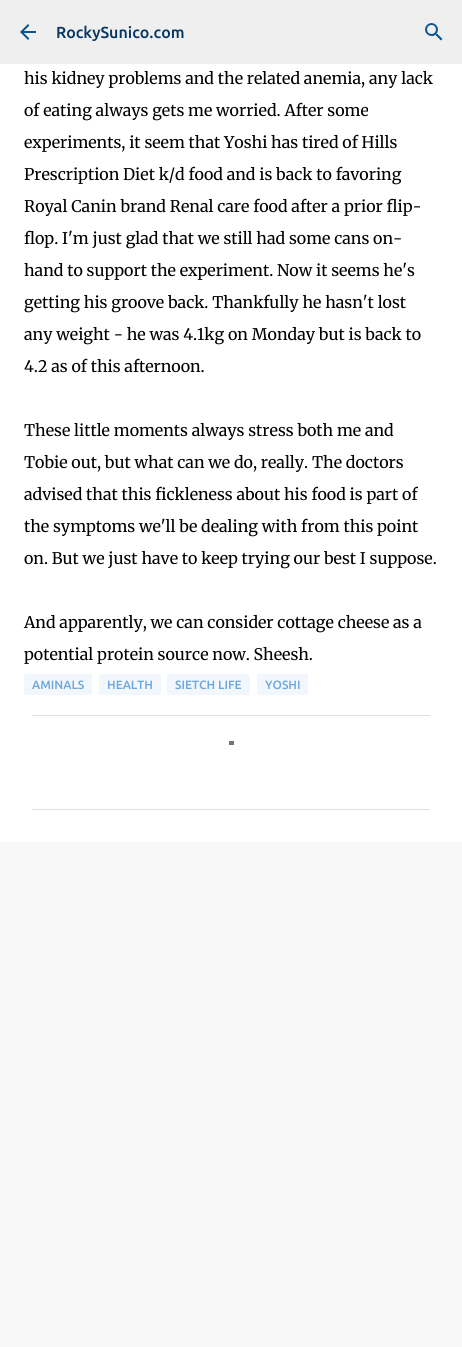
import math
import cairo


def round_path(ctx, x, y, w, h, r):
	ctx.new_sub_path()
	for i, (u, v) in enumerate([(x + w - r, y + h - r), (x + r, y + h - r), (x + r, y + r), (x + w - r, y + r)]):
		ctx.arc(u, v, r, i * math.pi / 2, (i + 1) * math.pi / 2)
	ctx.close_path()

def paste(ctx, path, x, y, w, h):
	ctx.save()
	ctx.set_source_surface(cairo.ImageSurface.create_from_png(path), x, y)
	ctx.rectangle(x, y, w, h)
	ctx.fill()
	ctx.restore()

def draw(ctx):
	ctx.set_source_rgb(0.969, 0.969, 0.969)
	ctx.paint()
	ctx.set_source_rgb(0.937, 0.937, 0.937)
	ctx.rectangle(0, 0, 462, 64)
	ctx.fill()
	paste(ctx, 'media/1.png', 20, 24, 16, 16)
	ctx.select_font_face('Ubuntu Medium')
	ctx.set_font_size(16)
	ctx.set_source_rgb(0.027, 0.216, 0.388)
	ctx.move_to(56, 38)
	ctx.show_text('RockySunico.com')
	paste(ctx, 'media/2.png', 425, 23, 18, 18)
	ctx.set_source_rgb(1, 1, 1)
	ctx.rectangle(0, 64, 462, 778)
	ctx.fill()
	ctx.select_font_face('Merriweather')
	ctx.set_source_rgb(0, 0, 0)
	for x, y, s in [
		(24, 84, 'his kidney problems and the related anemia, any lack'),
		(24, 116, 'of eating always gets me worried. After some'),
		(24, 148, 'experiments, it seem that Yoshi has tired of Hills'),
		(24, 180, 'Prescription Diet k/d food and is back to favoring'),
		(24, 212, 'Royal Canin brand Renal care food after a prior flip-'),
		(24, 244, 'flop. I\'m just glad that we still had some cans on-'),
		(24, 276, 'hand to support the experiment. Now it seems he\'s'),
		(24, 308, 'getting his groove back. Thankfully he hasn\'t lost'),
		(24, 340, 'any weight - he was 4.1kg on Monday but is back to'),
		(24, 372, '4.2 as of this afternoon.'),
		(24, 436, 'These little moments always stress both me and'),
		(24, 468, 'Tobie out, but what can we do, really. The doctors'),
		(24, 500, 'advised that this fickleness about his food is part of'),
		(24, 532, 'the symptoms we\'ll be dealing with from this point'),
		(24, 564, 'on. But we just have to keep trying our best I suppose.'),
		(24, 628, 'And apparently, we can consider cottage cheese as a'),
		(24, 660, 'potential protein source now. Sheesh.'),
	]:
		ctx.move_to(x, y)
		ctx.show_text(s)
	ctx.set_source_rgb(0.945, 0.965, 0.988)
	round_path(ctx, 24, 674, 68, 21, 2)
	ctx.fill()
	ctx.select_font_face('Ubuntu Medium')
	ctx.set_font_size(12)
	ctx.set_source_rgb(0.435, 0.659, 0.863)
	ctx.move_to(32, 689)
	ctx.show_text('AMINALS')
	ctx.set_source_rgb(0.945, 0.965, 0.988)
	round_path(ctx, 99, 674, 62, 21, 2)
	ctx.fill()
	ctx.set_source_rgb(0.435, 0.659, 0.863)
	ctx.move_to(107, 689)
	ctx.show_text('HEALTH')
	ctx.set_source_rgb(0.945, 0.965, 0.988)
	round_path(ctx, 167, 674, 83, 21, 2)
	ctx.fill()
	ctx.set_source_rgb(0.435, 0.659, 0.863)
	ctx.move_to(175, 689)
	ctx.show_text('SIETCH LIFE')
	ctx.set_source_rgb(0.945, 0.965, 0.988)
	round_path(ctx, 257, 674, 51, 21, 2)
	ctx.fill()
	ctx.set_source_rgb(0.435, 0.659, 0.863)
	ctx.move_to(265, 689)
	ctx.show_text('YOSHI')
	ctx.set_source_rgb(0.878, 0.878, 0.878)
	ctx.rectangle(32, 715, 398, 1)
	ctx.rectangle(32, 809, 398, 1)
	ctx.fill()
	ctx.set_source_rgb(0.459, 0.459, 0.459)
	ctx.rectangle(229, 741, 5, 4)
	ctx.fill()


surface = cairo.ImageSurface(cairo.FORMAT_RGB24, 462, 1347)
ctx = cairo.Context(surface)
options = cairo.FontOptions()
options.set_hint_metrics(cairo.HINT_METRICS_OFF)
options.set_hint_style(cairo.HINT_STYLE_NONE)
ctx.set_font_options(options)
ctx.set_miter_limit(4)
draw(ctx)
surface.write_to_png('image.png')
